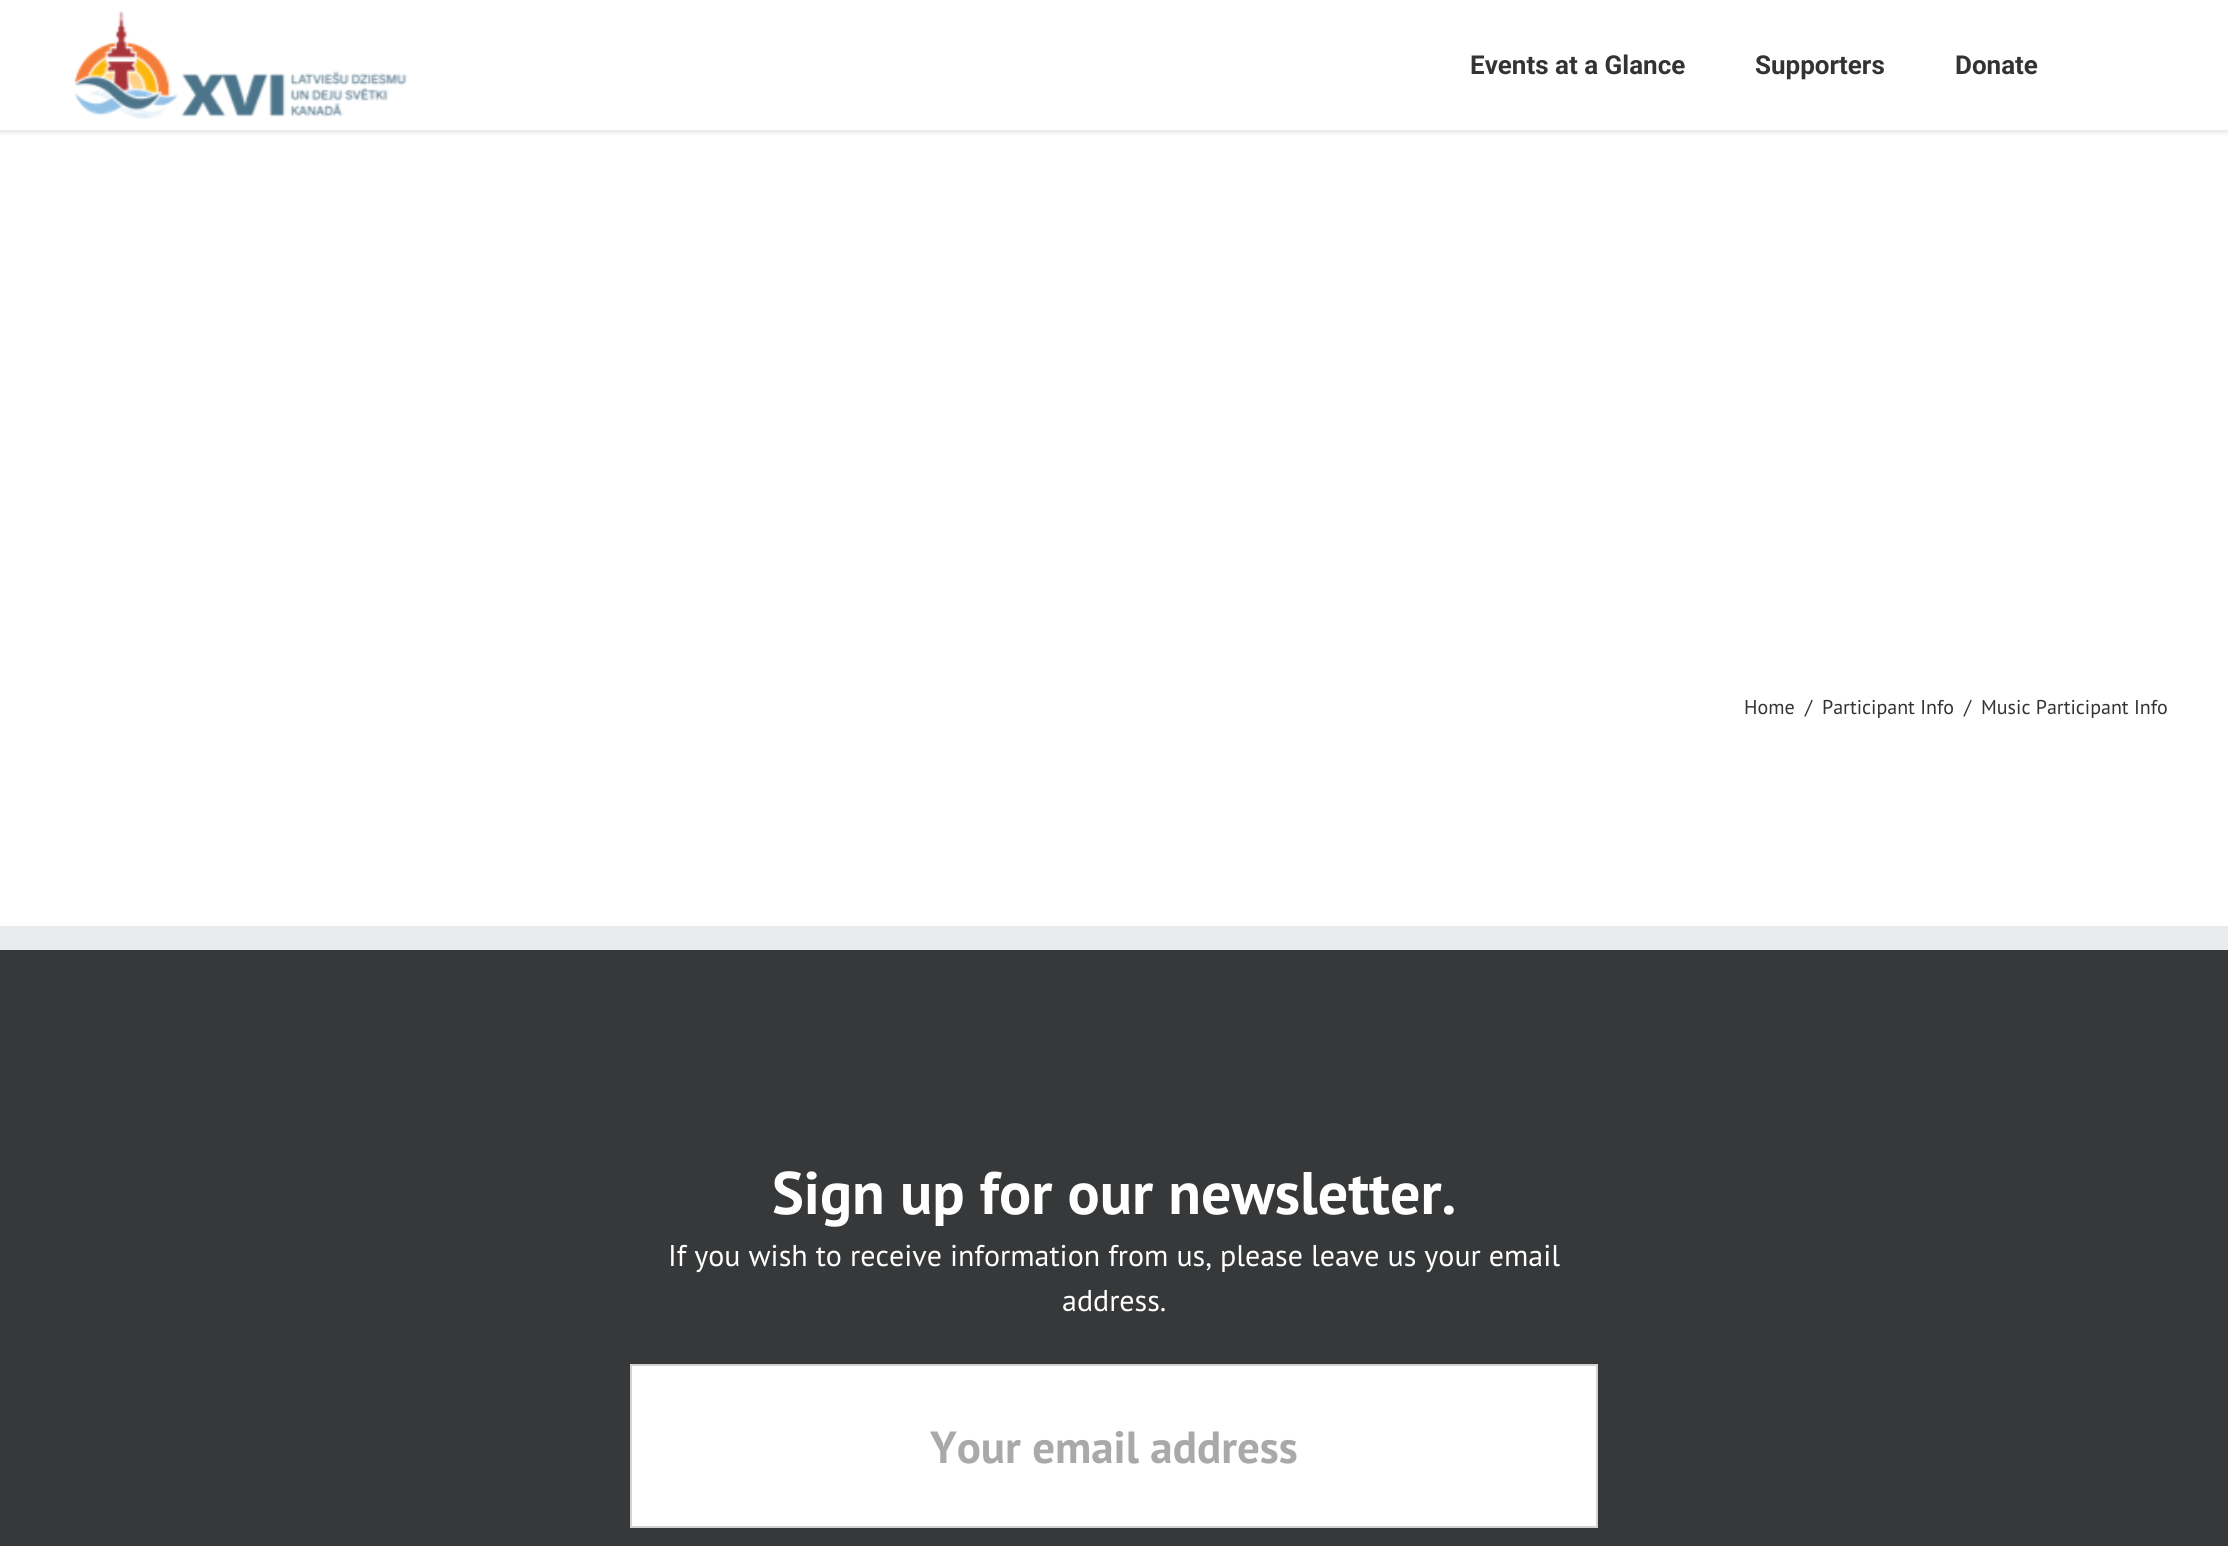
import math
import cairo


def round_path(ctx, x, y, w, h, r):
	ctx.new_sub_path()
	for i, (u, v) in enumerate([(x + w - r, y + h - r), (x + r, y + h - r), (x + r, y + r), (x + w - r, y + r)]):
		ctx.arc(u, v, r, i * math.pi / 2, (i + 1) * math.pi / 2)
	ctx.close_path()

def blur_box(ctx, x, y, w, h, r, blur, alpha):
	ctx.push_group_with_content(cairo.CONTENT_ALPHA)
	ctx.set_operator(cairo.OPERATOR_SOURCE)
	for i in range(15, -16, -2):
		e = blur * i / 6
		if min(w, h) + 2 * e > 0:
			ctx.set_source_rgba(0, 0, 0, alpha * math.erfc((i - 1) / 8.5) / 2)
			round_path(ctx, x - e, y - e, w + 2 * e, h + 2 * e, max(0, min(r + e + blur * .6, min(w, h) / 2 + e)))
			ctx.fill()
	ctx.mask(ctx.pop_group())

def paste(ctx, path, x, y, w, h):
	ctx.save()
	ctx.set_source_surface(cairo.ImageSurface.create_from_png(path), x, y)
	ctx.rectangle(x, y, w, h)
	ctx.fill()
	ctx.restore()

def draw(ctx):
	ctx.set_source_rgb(1, 1, 1)
	ctx.paint()
	ctx.save()
	ctx.rectangle(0, 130, 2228, 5)
	ctx.clip()
	ctx.set_source_rgb(0, 0, 0)
	blur_box(ctx, 0, 2, 2228, 130, 0, 3, 0.12)
	ctx.restore()
	paste(ctx, 'media/1.png', 74, 11, 333, 108)
	ctx.select_font_face('Roboto', cairo.FONT_SLANT_NORMAL, cairo.FONT_WEIGHT_BOLD)
	ctx.set_font_size(26)
	ctx.set_source_rgb(0.2, 0.2, 0.2)
	for x, y, s in [
		(1470, 74, 'Events at a Glance'),
		(1755, 74, 'Supporters'),
		(1955, 74, 'Donate'),
	]:
		ctx.move_to(x, y)
		ctx.show_text(s)
	ctx.select_font_face('PT Sans')
	ctx.set_font_size(20)
	for x, y, s in [
		(1744, 714, 'Home'),
		(1805, 714, '/'),
		(1822, 714, 'Participant Info'),
		(1964, 714, '/'),
		(1981, 714, 'Music Participant Info'),
	]:
		ctx.move_to(x, y)
		ctx.show_text(s)
	ctx.set_source_rgb(0.212, 0.22, 0.224)
	ctx.rectangle(0, 950, 2228, 596)
	ctx.fill()
	ctx.set_source_rgb(0.914, 0.918, 0.933)
	ctx.rectangle(0, 926, 2228, 24)
	ctx.fill()
	ctx.select_font_face('PT Sans', cairo.FONT_SLANT_NORMAL, cairo.FONT_WEIGHT_BOLD)
	ctx.set_font_size(60)
	ctx.set_source_rgb(1, 1, 1)
	ctx.move_to(772, 1214)
	ctx.show_text('Sign up for our newsletter.')
	ctx.select_font_face('PT Sans')
	ctx.set_font_size(30)
	ctx.move_to(668, 1266)
	ctx.show_text('If you wish to receive information from us, please leave us your email')
	ctx.move_to(1062, 1311)
	ctx.show_text('address.')
	ctx.rectangle(631, 1365, 966, 162)
	ctx.fill_preserve()
	ctx.set_source_rgb(0.824, 0.824, 0.824)
	ctx.stroke()
	ctx.select_font_face('PT Sans', cairo.FONT_SLANT_NORMAL, cairo.FONT_WEIGHT_BOLD)
	ctx.set_font_size(45)
	ctx.set_source_rgb(0.667, 0.663, 0.663)
	ctx.move_to(930, 1463)
	ctx.show_text('Your email address')


surface = cairo.ImageSurface(cairo.FORMAT_RGB24, 2228, 1546)
ctx = cairo.Context(surface)
options = cairo.FontOptions()
options.set_hint_metrics(cairo.HINT_METRICS_OFF)
options.set_hint_style(cairo.HINT_STYLE_NONE)
ctx.set_font_options(options)
ctx.set_miter_limit(4)
draw(ctx)
surface.write_to_png('image.png')
